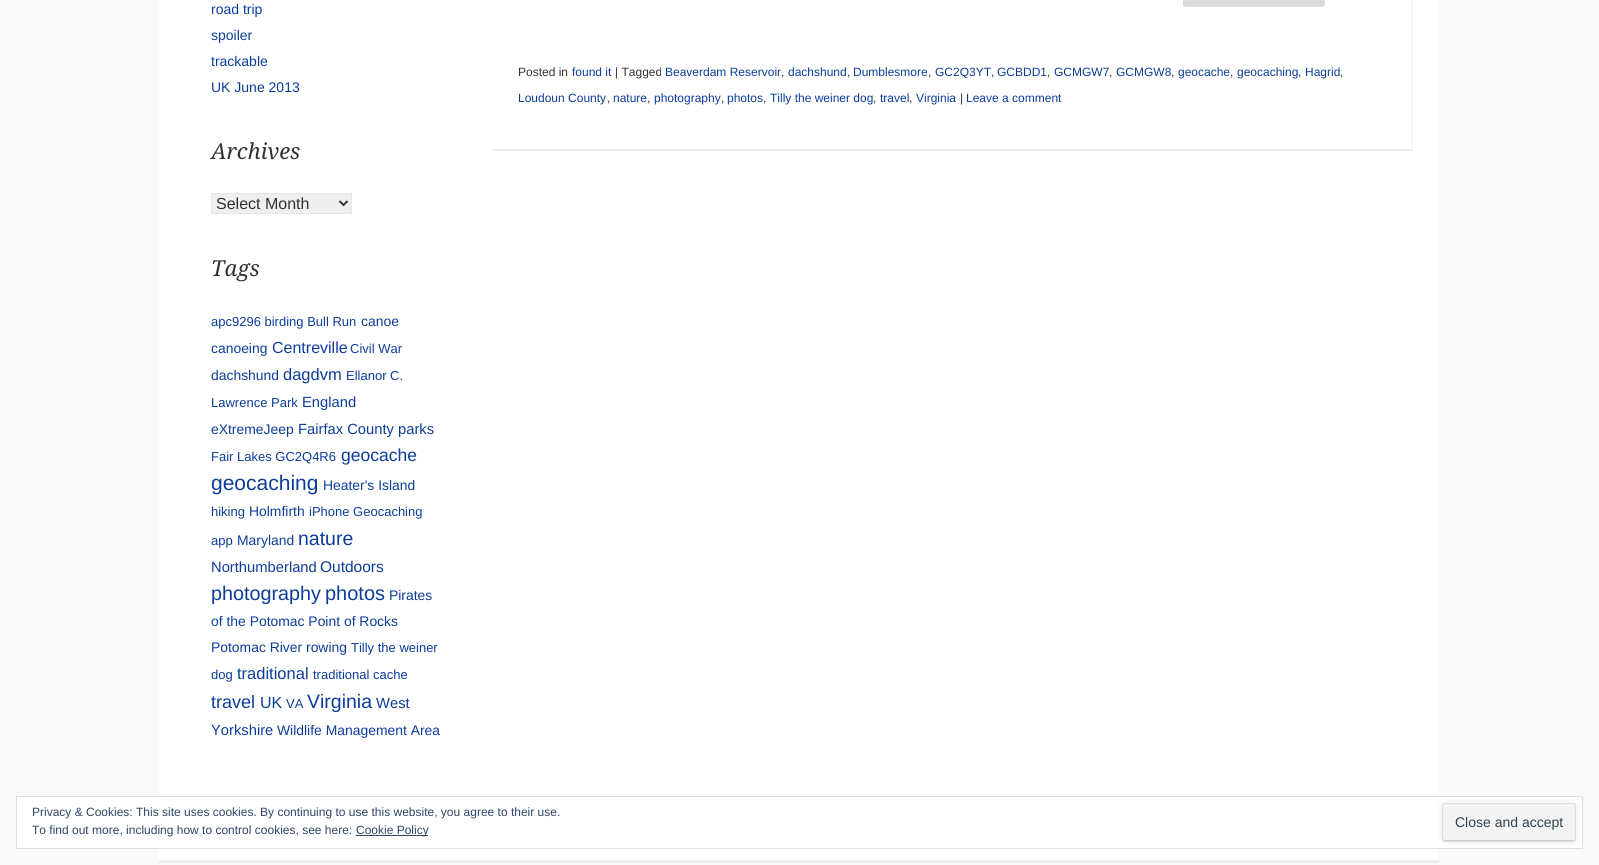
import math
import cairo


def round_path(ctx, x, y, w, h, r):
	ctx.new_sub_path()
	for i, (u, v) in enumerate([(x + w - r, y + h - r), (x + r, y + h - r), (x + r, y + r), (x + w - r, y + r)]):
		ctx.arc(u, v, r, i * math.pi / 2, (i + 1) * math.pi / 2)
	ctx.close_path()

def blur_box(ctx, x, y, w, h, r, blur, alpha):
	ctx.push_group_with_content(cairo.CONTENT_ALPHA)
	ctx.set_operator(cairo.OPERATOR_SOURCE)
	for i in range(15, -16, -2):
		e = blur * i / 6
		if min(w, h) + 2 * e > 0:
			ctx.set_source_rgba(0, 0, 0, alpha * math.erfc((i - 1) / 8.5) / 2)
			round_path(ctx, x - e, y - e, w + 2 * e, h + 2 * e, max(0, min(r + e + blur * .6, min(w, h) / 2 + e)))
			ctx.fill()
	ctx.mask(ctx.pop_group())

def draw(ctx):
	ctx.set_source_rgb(0.98, 0.98, 0.98)
	ctx.paint()
	ctx.set_source_rgb(1, 1, 1)
	ctx.rectangle(159, 0, 1280, 860)
	ctx.fill()
	ctx.set_source_rgb(0.922, 0.922, 0.922)
	ctx.rectangle(159, 860, 1280, 3)
	ctx.fill()
	ctx.select_font_face('Liberation Sans')
	ctx.set_font_size(14)
	ctx.set_source_rgb(0.051, 0.239, 0.608)
	for x, y, s in [
		(211, 14, 'road trip'),
		(211, 40, 'spoiler'),
		(211, 66, 'trackable'),
		(211, 92, 'UK June 2013'),
	]:
		ctx.move_to(x, y)
		ctx.show_text(s)
	ctx.select_font_face('Droid Serif', cairo.FONT_SLANT_ITALIC)
	ctx.set_font_size(22)
	ctx.set_source_rgb(0.196, 0.196, 0.196)
	ctx.move_to(211, 159)
	ctx.show_text('Archives')
	ctx.set_source_rgb(0.937, 0.937, 0.937)
	ctx.rectangle(211.5, 193.5, 140, 20)
	ctx.fill_preserve()
	ctx.set_source_rgb(0.902, 0.902, 0.902)
	ctx.set_line_width(1)
	ctx.stroke()
	ctx.new_path()
	ctx.move_to(339.5, 201)
	ctx.line_to(343.5, 205)
	ctx.line_to(347.5, 201)
	ctx.set_source_rgb(0.196, 0.196, 0.196)
	ctx.set_line_width(2)
	ctx.stroke()
	ctx.select_font_face('Liberation Sans')
	ctx.set_font_size(16)
	ctx.move_to(216, 209)
	ctx.show_text('Select Month')
	ctx.select_font_face('Droid Serif', cairo.FONT_SLANT_ITALIC)
	ctx.set_font_size(22)
	ctx.move_to(211, 276)
	ctx.show_text('Tags')
	ctx.select_font_face('Liberation Sans')
	ctx.set_font_size(13)
	ctx.set_source_rgb(0.051, 0.239, 0.608)
	ctx.move_to(211, 326)
	ctx.show_text('apc9296 birding Bull Run')
	ctx.set_font_size(13.9)
	ctx.move_to(361, 326)
	ctx.show_text('canoe')
	ctx.move_to(211, 353)
	ctx.show_text('canoeing')
	ctx.set_font_size(16)
	ctx.move_to(272, 353)
	ctx.show_text('Centreville')
	ctx.set_font_size(13)
	ctx.move_to(350, 353)
	ctx.show_text('Civil War')
	ctx.set_font_size(13.9)
	ctx.move_to(211, 380)
	ctx.show_text('dachshund')
	ctx.set_font_size(16.5)
	ctx.move_to(283, 380)
	ctx.show_text('dagdvm')
	ctx.set_font_size(13)
	ctx.move_to(346, 380)
	ctx.show_text('Ellanor C.')
	ctx.move_to(211, 407)
	ctx.show_text('Lawrence Park')
	ctx.set_font_size(14.75)
	ctx.move_to(302, 407)
	ctx.show_text('England')
	ctx.set_font_size(13.9)
	ctx.move_to(211, 434)
	ctx.show_text('eXtremeJeep')
	ctx.set_font_size(14.75)
	ctx.move_to(298, 434)
	ctx.show_text('Fairfax County parks')
	ctx.set_font_size(13)
	ctx.move_to(211, 461)
	ctx.show_text('Fair Lakes GC2Q4R6')
	ctx.set_font_size(17.5)
	ctx.move_to(341, 461)
	ctx.show_text('geocache')
	ctx.set_font_size(21)
	ctx.move_to(211, 490)
	ctx.show_text('geocaching')
	ctx.set_font_size(13.9)
	ctx.move_to(323, 490)
	ctx.show_text('Heater\'s Island')
	ctx.set_font_size(13)
	ctx.move_to(211, 516)
	ctx.show_text('hiking')
	ctx.set_font_size(13.9)
	ctx.move_to(249, 516)
	ctx.show_text('Holmfirth')
	ctx.set_font_size(13)
	ctx.move_to(309, 516)
	ctx.show_text('iPhone Geocaching')
	ctx.move_to(211, 545)
	ctx.show_text('app')
	ctx.set_font_size(13.9)
	ctx.move_to(237, 545)
	ctx.show_text('Maryland')
	ctx.set_font_size(19.5)
	ctx.move_to(298, 545)
	ctx.show_text('nature')
	ctx.set_font_size(14.75)
	ctx.move_to(211, 572)
	ctx.show_text('Northumberland')
	ctx.set_font_size(15.5)
	ctx.move_to(320, 572)
	ctx.show_text('Outdoors')
	ctx.set_font_size(19.75)
	ctx.move_to(211, 600)
	ctx.show_text('photography')
	ctx.set_font_size(20)
	ctx.move_to(325, 600)
	ctx.show_text('photos')
	ctx.set_font_size(13.9)
	for x, y, s in [
		(389, 600, 'Pirates'),
		(211, 626, 'of the Potomac Point of Rocks'),
		(211, 652, 'Potomac River rowing'),
	]:
		ctx.move_to(x, y)
		ctx.show_text(s)
	ctx.set_font_size(13)
	ctx.move_to(351, 652)
	ctx.show_text('Tilly the weiner')
	ctx.move_to(211, 679)
	ctx.show_text('dog')
	ctx.set_font_size(16.5)
	ctx.move_to(237, 679)
	ctx.show_text('traditional')
	ctx.set_font_size(13)
	ctx.move_to(313, 679)
	ctx.show_text('traditional cache')
	ctx.set_font_size(18)
	ctx.move_to(211, 708)
	ctx.show_text('travel')
	ctx.set_font_size(16)
	ctx.move_to(260, 708)
	ctx.show_text('UK')
	ctx.set_font_size(13)
	ctx.move_to(286, 708)
	ctx.show_text('VA')
	ctx.set_font_size(19.5)
	ctx.move_to(307, 708)
	ctx.show_text('Virginia')
	ctx.set_font_size(14.75)
	ctx.move_to(376, 708)
	ctx.show_text('West')
	ctx.move_to(211, 735)
	ctx.show_text('Yorkshire')
	ctx.set_font_size(13.9)
	ctx.move_to(277, 735)
	ctx.show_text('Wildlife Management Area')
	ctx.save()
	ctx.rectangle(492, 0, 921, 150)
	ctx.clip()
	ctx.set_source_rgb(0.937, 0.937, 0.937)
	ctx.set_fill_rule(cairo.FILL_RULE_EVEN_ODD)
	ctx.new_path()
	ctx.move_to(393, -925)
	ctx.line_to(1512, -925)
	ctx.line_to(1512, 249)
	ctx.line_to(393, 249)
	ctx.close_path()
	ctx.move_to(491, -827)
	ctx.line_to(1412, -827)
	ctx.line_to(1412, 149)
	ctx.line_to(491, 149)
	ctx.close_path()
	ctx.fill()
	ctx.restore()
	ctx.set_source_rgb(0.922, 0.922, 0.922)
	ctx.rectangle(492, 150, 921, 1)
	ctx.fill()
	ctx.set_source_rgb(0.941, 0.941, 0.941)
	round_path(ctx, 1183, -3, 142, 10, 3)
	ctx.fill()
	ctx.save()
	round_path(ctx, 1183, -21, 142, 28, 3)
	ctx.clip()
	gradient = cairo.LinearGradient(1254, -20, 1254, 6)
	gradient.add_color_stop_rgba(0, 0.941, 0.941, 0.941, 0.8)
	gradient.add_color_stop_rgba(1, 0.824, 0.824, 0.824, 0.8)
	ctx.set_source(gradient)
	ctx.rectangle(1183, 0, 142, 6)
	ctx.fill()
	gradient = cairo.LinearGradient(1254, 6, 1254, 32)
	gradient.add_color_stop_rgba(0, 0.941, 0.941, 0.941, 0.8)
	gradient.add_color_stop_rgba(1, 0.824, 0.824, 0.824, 0.8)
	ctx.set_source(gradient)
	ctx.rectangle(1183, 6, 142, 1)
	ctx.fill()
	ctx.restore()
	round_path(ctx, 1183.5, -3.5, 141, 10, 2.5)
	ctx.set_source_rgba(0.863, 0.863, 0.863, 0.8)
	ctx.set_line_width(1)
	ctx.stroke()
	ctx.set_font_size(12)
	ctx.set_source_rgb(0.196, 0.196, 0.196)
	ctx.move_to(518, 76)
	ctx.show_text('Posted in')
	ctx.set_source_rgb(0.051, 0.239, 0.608)
	ctx.move_to(572, 76)
	ctx.show_text('found it')
	ctx.set_source_rgb(0.196, 0.196, 0.196)
	ctx.move_to(615, 76)
	ctx.show_text('| Tagged')
	ctx.set_source_rgb(0.051, 0.239, 0.608)
	ctx.move_to(665, 76)
	ctx.show_text('Beaverdam Reservoir')
	ctx.set_source_rgb(0.196, 0.196, 0.196)
	ctx.move_to(781, 76)
	ctx.show_text(',')
	ctx.set_source_rgb(0.051, 0.239, 0.608)
	ctx.move_to(788, 76)
	ctx.show_text('dachshund')
	ctx.set_source_rgb(0.196, 0.196, 0.196)
	ctx.move_to(847, 76)
	ctx.show_text(',')
	ctx.set_source_rgb(0.051, 0.239, 0.608)
	ctx.move_to(853, 76)
	ctx.show_text('Dumblesmore')
	ctx.set_source_rgb(0.196, 0.196, 0.196)
	ctx.move_to(928, 76)
	ctx.show_text(',')
	ctx.set_source_rgb(0.051, 0.239, 0.608)
	ctx.move_to(935, 76)
	ctx.show_text('GC2Q3YT')
	ctx.set_source_rgb(0.196, 0.196, 0.196)
	ctx.move_to(991, 76)
	ctx.show_text(',')
	ctx.set_source_rgb(0.051, 0.239, 0.608)
	ctx.move_to(997, 76)
	ctx.show_text('GCBDD1')
	ctx.set_source_rgb(0.196, 0.196, 0.196)
	ctx.move_to(1047, 76)
	ctx.show_text(',')
	ctx.set_source_rgb(0.051, 0.239, 0.608)
	ctx.move_to(1054, 76)
	ctx.show_text('GCMGW7')
	ctx.set_source_rgb(0.196, 0.196, 0.196)
	ctx.move_to(1109, 76)
	ctx.show_text(',')
	ctx.set_source_rgb(0.051, 0.239, 0.608)
	ctx.move_to(1116, 76)
	ctx.show_text('GCMGW8')
	ctx.set_source_rgb(0.196, 0.196, 0.196)
	ctx.move_to(1171, 76)
	ctx.show_text(',')
	ctx.set_source_rgb(0.051, 0.239, 0.608)
	ctx.move_to(1178, 76)
	ctx.show_text('geocache')
	ctx.set_source_rgb(0.196, 0.196, 0.196)
	ctx.move_to(1230, 76)
	ctx.show_text(',')
	ctx.set_source_rgb(0.051, 0.239, 0.608)
	ctx.move_to(1237, 76)
	ctx.show_text('geocaching')
	ctx.set_source_rgb(0.196, 0.196, 0.196)
	ctx.move_to(1298, 76)
	ctx.show_text(',')
	ctx.set_source_rgb(0.051, 0.239, 0.608)
	ctx.move_to(1305, 76)
	ctx.show_text('Hagrid')
	ctx.set_source_rgb(0.196, 0.196, 0.196)
	ctx.move_to(1340, 76)
	ctx.show_text(',')
	ctx.set_source_rgb(0.051, 0.239, 0.608)
	ctx.move_to(518, 102)
	ctx.show_text('Loudoun County')
	ctx.set_source_rgb(0.196, 0.196, 0.196)
	ctx.move_to(607, 102)
	ctx.show_text(',')
	ctx.set_source_rgb(0.051, 0.239, 0.608)
	ctx.move_to(613, 102)
	ctx.show_text('nature')
	ctx.set_source_rgb(0.196, 0.196, 0.196)
	ctx.move_to(647, 102)
	ctx.show_text(',')
	ctx.set_source_rgb(0.051, 0.239, 0.608)
	ctx.move_to(654, 102)
	ctx.show_text('photography')
	ctx.set_source_rgb(0.196, 0.196, 0.196)
	ctx.move_to(721, 102)
	ctx.show_text(',')
	ctx.set_source_rgb(0.051, 0.239, 0.608)
	ctx.move_to(727, 102)
	ctx.show_text('photos')
	ctx.set_source_rgb(0.196, 0.196, 0.196)
	ctx.move_to(763, 102)
	ctx.show_text(',')
	ctx.set_source_rgb(0.051, 0.239, 0.608)
	ctx.move_to(770, 102)
	ctx.show_text('Tilly the weiner dog')
	ctx.set_source_rgb(0.196, 0.196, 0.196)
	ctx.move_to(873, 102)
	ctx.show_text(',')
	ctx.set_source_rgb(0.051, 0.239, 0.608)
	ctx.move_to(880, 102)
	ctx.show_text('travel')
	ctx.set_source_rgb(0.196, 0.196, 0.196)
	ctx.move_to(909, 102)
	ctx.show_text(',')
	ctx.set_source_rgb(0.051, 0.239, 0.608)
	ctx.move_to(916, 102)
	ctx.show_text('Virginia')
	ctx.set_source_rgb(0.196, 0.196, 0.196)
	ctx.move_to(960, 102)
	ctx.show_text('|')
	ctx.set_source_rgb(0.051, 0.239, 0.608)
	ctx.move_to(966, 102)
	ctx.show_text('Leave a comment')
	ctx.set_source_rgb(1, 1, 1)
	ctx.rectangle(16.5, 796.5, 1566, 52)
	ctx.fill_preserve()
	ctx.set_source_rgb(0.871, 0.871, 0.871)
	ctx.stroke()
	ctx.set_source_rgb(0.18, 0.267, 0.404)
	ctx.move_to(32, 816)
	ctx.show_text('Privacy & Cookies: This site uses cookies. By continuing to use this website, you agree to their use.')
	ctx.move_to(32, 834)
	ctx.show_text('To find out more, including how to control cookies, see here:')
	ctx.rectangle(356, 835, 72, 1)
	ctx.fill()
	ctx.move_to(356, 834)
	ctx.show_text('Cookie Policy')
	ctx.set_source_rgb(0, 0, 0)
	blur_box(ctx, 1442, 803, 134, 39, 3, 3.5, 0.09)
	ctx.set_source_rgb(0.953, 0.953, 0.953)
	round_path(ctx, 1442, 803, 134, 39, 3)
	ctx.fill()
	ctx.set_source_rgb(0.816, 0.816, 0.816)
	ctx.new_path()
	ctx.move_to(1443, 838)
	ctx.curve_to(1443, 839, 1443, 841, 1445, 841)
	ctx.line_to(1573, 841)
	ctx.curve_to(1575, 841, 1575, 839, 1575, 838)
	ctx.curve_to(1575, 839, 1574, 840, 1573, 840)
	ctx.line_to(1445, 840)
	ctx.curve_to(1444, 840, 1443, 839, 1443, 838)
	ctx.close_path()
	ctx.fill()
	ctx.set_source_rgb(0.992, 0.992, 0.992)
	ctx.new_path()
	ctx.move_to(1445, 806)
	ctx.line_to(1573, 806)
	ctx.curve_to(1574, 806, 1575, 807, 1575, 808)
	ctx.line_to(1575, 806)
	ctx.curve_to(1575, 805, 1574, 804, 1573, 804)
	ctx.line_to(1445, 804)
	ctx.curve_to(1444, 804, 1443, 805, 1443, 806)
	ctx.line_to(1443, 808)
	ctx.curve_to(1443, 807, 1444, 806, 1445, 806)
	ctx.close_path()
	ctx.fill()
	ctx.set_source_rgb(0.922, 0.922, 0.922)
	ctx.new_path()
	ctx.move_to(1445, 805)
	ctx.line_to(1573, 805)
	ctx.curve_to(1574, 805, 1575, 806, 1575, 807)
	ctx.curve_to(1575, 806, 1575, 804, 1573, 804)
	ctx.line_to(1445, 804)
	ctx.curve_to(1443, 804, 1443, 806, 1443, 807)
	ctx.curve_to(1443, 806, 1444, 805, 1445, 805)
	ctx.close_path()
	ctx.fill()
	round_path(ctx, 1442.5, 803.5, 133, 38, 2.5)
	ctx.set_source_rgb(0.871, 0.871, 0.871)
	ctx.stroke()
	ctx.set_font_size(14)
	ctx.set_source_rgb(0.18, 0.267, 0.325)
	ctx.move_to(1455, 827)
	ctx.show_text('Close and accept')


surface = cairo.ImageSurface(cairo.FORMAT_RGB24, 1599, 865)
ctx = cairo.Context(surface)
options = cairo.FontOptions()
options.set_hint_metrics(cairo.HINT_METRICS_OFF)
options.set_hint_style(cairo.HINT_STYLE_NONE)
ctx.set_font_options(options)
ctx.set_miter_limit(4)
draw(ctx)
surface.write_to_png('image.png')
